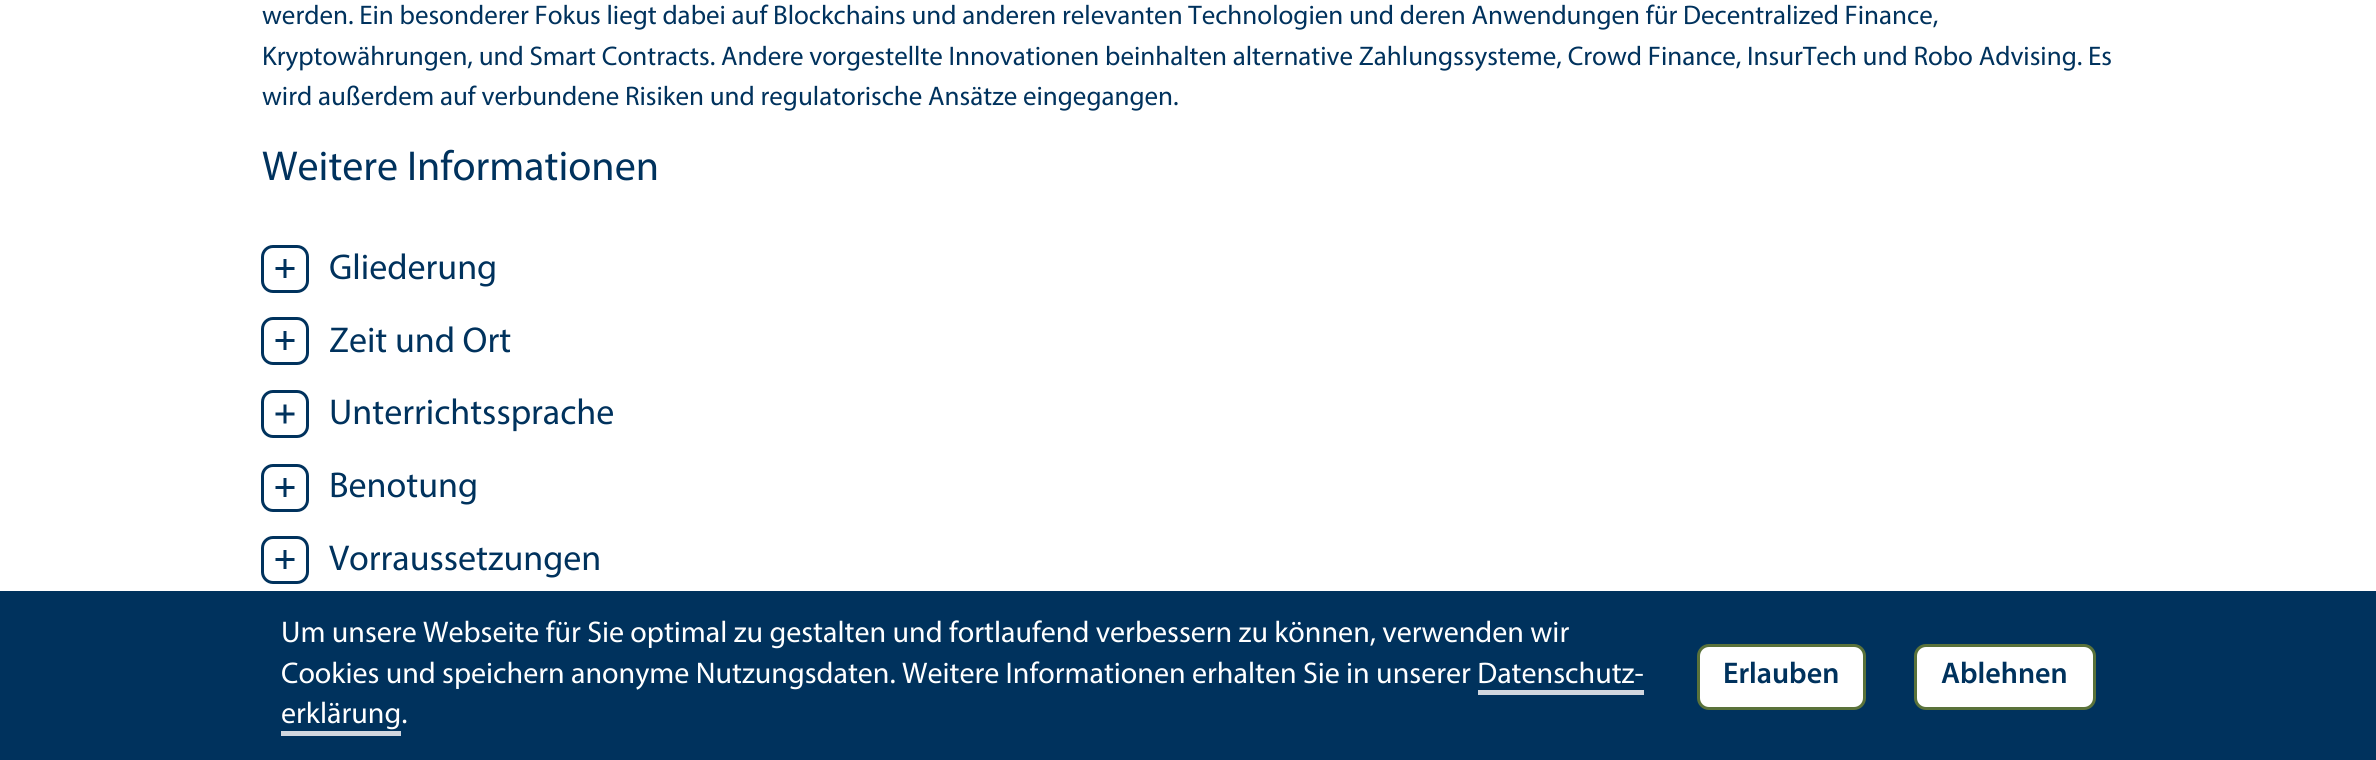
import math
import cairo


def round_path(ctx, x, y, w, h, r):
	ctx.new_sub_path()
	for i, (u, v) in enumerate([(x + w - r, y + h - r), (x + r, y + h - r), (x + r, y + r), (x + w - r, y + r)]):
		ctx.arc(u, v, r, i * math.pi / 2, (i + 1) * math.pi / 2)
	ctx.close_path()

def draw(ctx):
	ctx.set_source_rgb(1, 1, 1)
	ctx.paint()
	ctx.select_font_face('myriad')
	ctx.set_font_size(27)
	ctx.set_source_rgb(0, 0.196, 0.365)
	for x, y, s in [
		(262, 24, 'werden. Ein besonderer Fokus liegt dabei auf Blockchains und anderen relevanten Technologien und deren Anwendungen für Decentralized Finance,'),
		(262, 65, 'Kryptowährungen, und Smart Contracts. Andere vorgestellte Innovationen beinhalten alternative Zahlungssysteme, Crowd Finance, InsurTech und Robo Advising. Es'),
		(262, 105, 'wird außerdem auf verbundene Risiken und regulatorische Ansätze eingegangen.'),
	]:
		ctx.move_to(x, y)
		ctx.show_text(s)
	ctx.set_font_size(42)
	ctx.move_to(262, 180)
	ctx.show_text('Weitere Informationen')
	round_path(ctx, 262.5, 246.5, 45, 45, 10.5)
	ctx.set_line_width(3)
	ctx.stroke()
	ctx.set_font_size(36)
	ctx.move_to(329, 279)
	ctx.show_text('Gliederung')
	ctx.new_path()
	ctx.move_to(275.5, 268.5)
	ctx.line_to(294.5, 268.5)
	ctx.move_to(285, 259)
	ctx.line_to(285, 278)
	ctx.stroke()
	round_path(ctx, 262.5, 318.5, 45, 45, 10.5)
	ctx.stroke()
	ctx.move_to(329, 352)
	ctx.show_text('Zeit und Ort')
	ctx.new_path()
	ctx.move_to(275.5, 340.5)
	ctx.line_to(294.5, 340.5)
	ctx.move_to(285, 331)
	ctx.line_to(285, 350)
	ctx.stroke()
	round_path(ctx, 262.5, 391.5, 45, 45, 10.5)
	ctx.stroke()
	ctx.move_to(329, 424)
	ctx.show_text('Unterrichtssprache')
	ctx.new_path()
	ctx.move_to(275.5, 414)
	ctx.line_to(294.5, 414)
	ctx.move_to(285, 404.5)
	ctx.line_to(285, 423.5)
	ctx.stroke()
	round_path(ctx, 262.5, 465.5, 45, 45, 10.5)
	ctx.stroke()
	ctx.move_to(329, 497)
	ctx.show_text('Benotung')
	ctx.new_path()
	ctx.move_to(275.5, 487.5)
	ctx.line_to(294.5, 487.5)
	ctx.move_to(285, 478)
	ctx.line_to(285, 497)
	ctx.stroke()
	round_path(ctx, 262.5, 537.5, 45, 45, 10.5)
	ctx.stroke()
	ctx.move_to(329, 570)
	ctx.show_text('Vorraussetzungen')
	ctx.new_path()
	ctx.move_to(275.5, 559.5)
	ctx.line_to(294.5, 559.5)
	ctx.move_to(285, 550)
	ctx.line_to(285, 569)
	ctx.stroke()
	ctx.rectangle(0, 591, 2376, 169)
	ctx.fill()
	ctx.set_font_size(30)
	ctx.set_source_rgb(1, 1, 1)
	for x, y, s in [
		(281, 642, 'Um unsere Webseite für Sie optimal zu gestalten und fortlaufend verbessern zu können, verwenden wir'),
		(281, 683, 'Cookies und speichern anonyme Nutzungsdaten. Weitere Informationen erhalten Sie in unserer Datenschutz-'),
		(281, 723, 'erklärung.'),
	]:
		ctx.move_to(x, y)
		ctx.show_text(s)
	ctx.set_source_rgb(0.82, 0.843, 0.875)
	ctx.rectangle(1478, 690, 166, 5)
	ctx.fill()
	ctx.rectangle(281, 731, 120, 5)
	ctx.fill()
	ctx.set_source_rgb(1, 1, 1)
	round_path(ctx, 1698.5, 645.5, 166, 63, 10.5)
	ctx.fill_preserve()
	ctx.set_source_rgb(0.353, 0.447, 0.227)
	ctx.stroke()
	ctx.select_font_face('Myriad SemiBold')
	ctx.set_source_rgb(0, 0.196, 0.365)
	ctx.move_to(1723, 683)
	ctx.show_text('Erlauben')
	ctx.set_source_rgb(1, 1, 1)
	round_path(ctx, 1915.5, 645.5, 179, 63, 10.5)
	ctx.fill_preserve()
	ctx.set_source_rgb(0.353, 0.447, 0.227)
	ctx.stroke()
	ctx.set_source_rgb(0, 0.196, 0.365)
	ctx.move_to(1941, 683)
	ctx.show_text('Ablehnen')


surface = cairo.ImageSurface(cairo.FORMAT_RGB24, 2376, 760)
ctx = cairo.Context(surface)
options = cairo.FontOptions()
options.set_hint_metrics(cairo.HINT_METRICS_OFF)
options.set_hint_style(cairo.HINT_STYLE_NONE)
ctx.set_font_options(options)
ctx.set_miter_limit(4)
draw(ctx)
surface.write_to_png('image.png')
